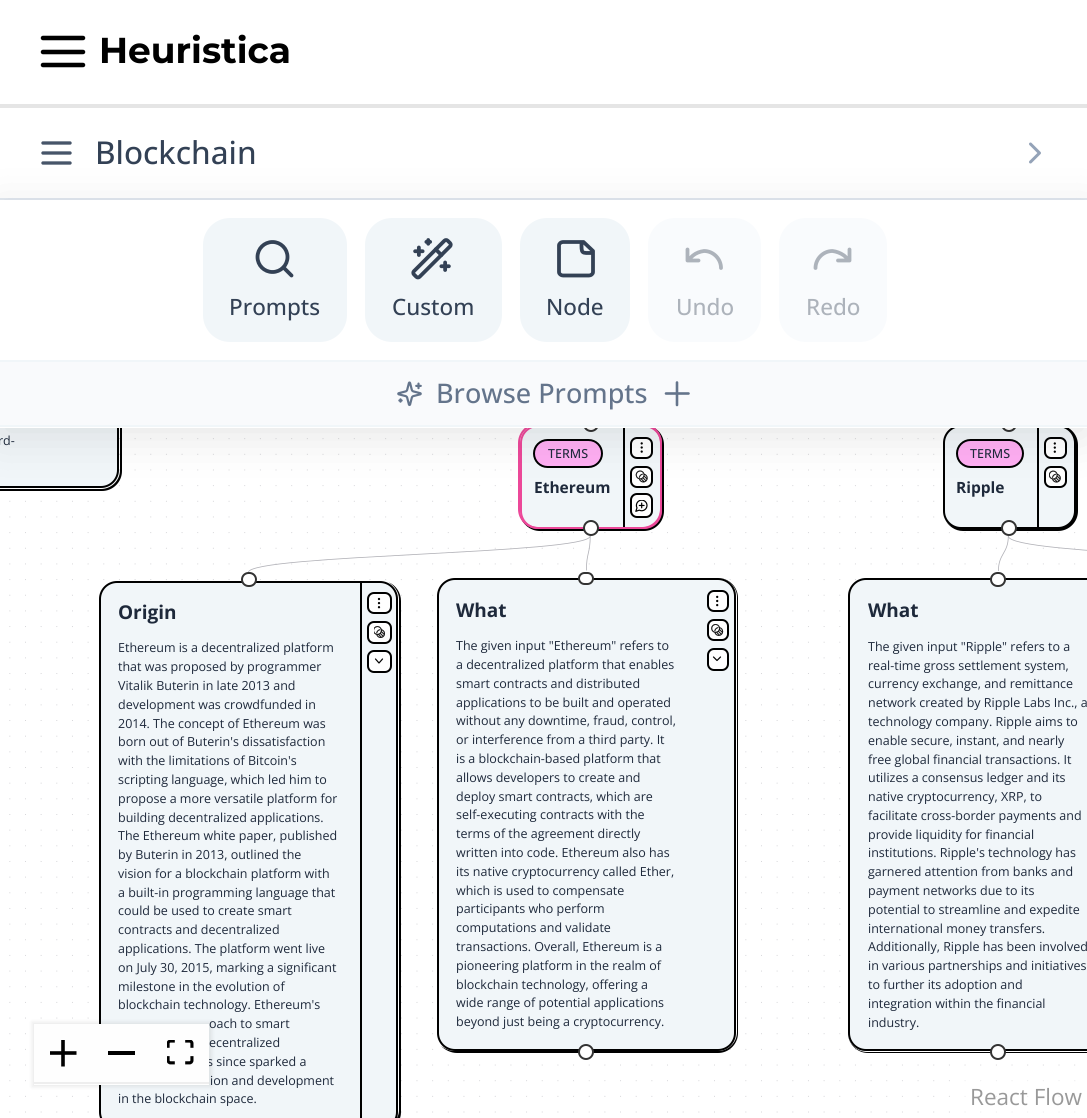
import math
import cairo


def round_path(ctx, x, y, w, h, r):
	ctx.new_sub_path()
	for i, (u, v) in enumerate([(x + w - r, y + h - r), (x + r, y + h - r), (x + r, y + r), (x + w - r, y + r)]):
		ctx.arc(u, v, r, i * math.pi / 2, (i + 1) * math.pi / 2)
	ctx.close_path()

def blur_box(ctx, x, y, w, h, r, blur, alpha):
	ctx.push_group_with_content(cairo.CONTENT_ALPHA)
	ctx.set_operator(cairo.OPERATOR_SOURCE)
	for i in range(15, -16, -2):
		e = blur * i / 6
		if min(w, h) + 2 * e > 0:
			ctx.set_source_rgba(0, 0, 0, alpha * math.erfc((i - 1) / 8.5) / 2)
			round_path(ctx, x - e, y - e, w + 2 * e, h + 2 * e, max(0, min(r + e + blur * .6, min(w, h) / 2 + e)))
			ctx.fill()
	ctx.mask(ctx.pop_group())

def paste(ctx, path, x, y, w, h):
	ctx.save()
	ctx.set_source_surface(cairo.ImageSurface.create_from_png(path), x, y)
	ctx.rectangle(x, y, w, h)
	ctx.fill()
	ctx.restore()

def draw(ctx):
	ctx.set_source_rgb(1, 1, 1)
	ctx.paint()
	paste(ctx, 'media/9.png', 9, 438, 1067, 675)
	ctx.set_source_rgb(0, 0, 0)
	ctx.new_path()
	ctx.move_to(-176, 483)
	ctx.curve_to(-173, 488, -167, 491, -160, 491)
	ctx.line_to(102, 491)
	ctx.curve_to(113, 491, 122, 482, 122, 471)
	ctx.line_to(122, -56)
	ctx.curve_to(122, -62, 120, -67, 116, -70)
	ctx.curve_to(118, -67, 120, -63, 120, -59)
	ctx.line_to(120, 470)
	ctx.curve_to(120, 481, 111, 489, 101, 489)
	ctx.line_to(-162, 489)
	ctx.curve_to(-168, 489, -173, 487, -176, 483)
	ctx.close_path()
	ctx.fill()
	ctx.set_source_rgb(0.945, 0.961, 0.976)
	ctx.new_path()
	ctx.move_to(0, 0)
	ctx.line_to(119, 0)
	ctx.line_to(119, 470)
	ctx.curve_to(119, 480, 111, 488, 101, 488)
	ctx.line_to(0, 488)
	ctx.close_path()
	ctx.fill()
	round_path(ctx, -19, -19, 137, 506, 17)
	ctx.set_source_rgb(0, 0, 0)
	ctx.stroke()
	ctx.set_source_rgb(1, 1, 1)
	ctx.rectangle(0, 0, 122, 104)
	ctx.fill()
	ctx.set_source_rgb(0.898, 0.898, 0.898)
	ctx.rectangle(0, 104, 1087, 4)
	ctx.fill()
	ctx.new_path()
	ctx.move_to(43, 52)
	ctx.line_to(83, 52)
	ctx.move_to(43, 38)
	ctx.line_to(83, 38)
	ctx.move_to(43, 65)
	ctx.line_to(83, 65)
	ctx.set_source_rgb(0, 0, 0)
	ctx.set_line_width(4.5)
	ctx.set_line_cap(cairo.LINE_CAP_ROUND)
	ctx.set_line_join(cairo.LINE_JOIN_ROUND)
	ctx.stroke()
	ctx.select_font_face('Montserrat', cairo.FONT_SLANT_NORMAL, cairo.FONT_WEIGHT_BOLD)
	ctx.set_font_size(36)
	ctx.move_to(99, 63)
	ctx.show_text('Heuristica')
	ctx.set_source_rgb(1, 1, 1)
	ctx.rectangle(0, 108, 122, 90)
	ctx.fill()
	ctx.set_source_rgb(0.886, 0.91, 0.941)
	ctx.rectangle(0, 198, 1087, 2)
	ctx.fill()
	ctx.new_path()
	ctx.move_to(43, 153)
	ctx.line_to(70, 153)
	ctx.move_to(43, 143)
	ctx.line_to(70, 143)
	ctx.move_to(43, 163)
	ctx.line_to(70, 163)
	ctx.set_source_rgb(0.278, 0.333, 0.412)
	ctx.set_line_width(3.4)
	ctx.stroke()
	ctx.select_font_face('Open Sans Medium')
	ctx.set_font_size(31.5)
	ctx.set_source_rgb(0.2, 0.255, 0.333)
	ctx.move_to(95, 164)
	ctx.show_text('Blockchain')
	ctx.new_path()
	ctx.move_to(1030.5, 162)
	ctx.line_to(1039.5, 153)
	ctx.line_to(1030.5, 144)
	ctx.set_source_rgb(0.58, 0.639, 0.722)
	ctx.set_line_width(3)
	ctx.stroke()
	ctx.set_source_rgb(0, 0, 0)
	ctx.new_path()
	ctx.move_to(520, 515)
	ctx.curve_to(522, 524, 530, 531, 540, 531)
	ctx.line_to(644, 531)
	ctx.curve_to(655, 531, 664, 522, 664, 511)
	ctx.line_to(664, 445)
	ctx.curve_to(664, 434, 656, 426, 645, 425)
	ctx.curve_to(654, 426, 661, 434, 661, 444)
	ctx.line_to(661, 509)
	ctx.curve_to(661, 520, 652, 528, 642, 528)
	ctx.line_to(538, 528)
	ctx.curve_to(530, 528, 523, 523, 520, 515)
	ctx.close_path()
	ctx.fill()
	ctx.set_source_rgb(0.945, 0.961, 0.976)
	round_path(ctx, 521, 426, 140, 102, 17)
	ctx.fill_preserve()
	ctx.set_source_rgb(0.925, 0.282, 0.6)
	ctx.set_line_width(2)
	ctx.set_line_cap(cairo.LINE_CAP_BUTT)
	ctx.set_line_join(cairo.LINE_JOIN_MITER)
	ctx.stroke()
	ctx.set_source_rgb(0, 0, 0)
	ctx.rectangle(623, 425, 2, 102)
	ctx.fill()
	ctx.set_source_rgb(1, 1, 1)
	round_path(ctx, 631, 438, 21, 20, 6)
	ctx.fill_preserve()
	ctx.set_source_rgb(0, 0, 0)
	ctx.stroke()
	ctx.set_source_rgb(1, 1, 1)
	round_path(ctx, 631, 467, 21, 20, 6)
	ctx.fill_preserve()
	ctx.set_source_rgb(0, 0, 0)
	ctx.stroke()
	round_path(ctx, 519, 424, 142, 104, 19)
	ctx.set_source_rgb(0.925, 0.282, 0.6)
	ctx.stroke()
	ctx.set_source_rgb(1, 1, 1)
	ctx.arc(591, 424, 7, 0, 2 * math.pi)
	ctx.fill_preserve()
	ctx.set_source_rgb(0.2, 0.2, 0.2)
	ctx.stroke()
	ctx.set_source_rgb(1, 0.682, 0.953)
	round_path(ctx, 534, 440, 68, 27, 13.5)
	ctx.fill_preserve()
	ctx.set_source_rgb(0, 0, 0)
	ctx.stroke()
	ctx.arc(641.7, 447.5, 0.6, 0, 2 * math.pi)
	ctx.set_line_width(1.2)
	ctx.stroke()
	ctx.arc(641.7, 443.4, 0.6, 0, 2 * math.pi)
	ctx.stroke()
	ctx.arc(641.7, 451.6, 0.6, 0, 2 * math.pi)
	ctx.stroke()
	paste(ctx, 'media/3.png', 635, 470, 13, 13)
	ctx.set_source_rgb(1, 1, 1)
	round_path(ctx, 631, 494, 21, 23, 6)
	ctx.fill_preserve()
	ctx.set_source_rgb(0, 0, 0)
	ctx.set_line_width(2)
	ctx.stroke()
	paste(ctx, 'media/4.png', 635, 500, 13, 12)
	ctx.new_path()
	ctx.move_to(945, 519)
	ctx.curve_to(948, 526, 955, 531, 963, 531)
	ctx.line_to(1058, 531)
	ctx.curve_to(1069, 531, 1078, 522, 1078, 511)
	ctx.line_to(1078, 445)
	ctx.curve_to(1078, 434, 1069, 425, 1058, 425)
	ctx.curve_to(1067, 426, 1075, 434, 1075, 444)
	ctx.line_to(1075, 509)
	ctx.curve_to(1075, 520, 1066, 528, 1056, 528)
	ctx.line_to(961, 528)
	ctx.curve_to(954, 528, 948, 525, 945, 519)
	ctx.close_path()
	ctx.fill()
	ctx.set_source_rgb(0.945, 0.961, 0.976)
	round_path(ctx, 944, 426, 131, 102, 17)
	ctx.fill_preserve()
	ctx.set_source_rgb(0, 0, 0)
	ctx.stroke()
	ctx.set_source_rgb(1, 1, 1)
	ctx.arc(1009, 424, 7, 0, 2 * math.pi)
	ctx.fill_preserve()
	ctx.set_source_rgb(0.2, 0.2, 0.2)
	ctx.stroke()
	ctx.set_source_rgb(1, 0.682, 0.953)
	round_path(ctx, 957, 440, 66, 27, 13.5)
	ctx.fill_preserve()
	ctx.set_source_rgb(0, 0, 0)
	ctx.stroke()
	ctx.rectangle(1037, 428, 2, 99)
	ctx.fill()
	ctx.set_source_rgb(1, 1, 1)
	round_path(ctx, 1045, 438, 21, 20, 6)
	ctx.fill_preserve()
	ctx.set_source_rgb(0, 0, 0)
	ctx.stroke()
	ctx.arc(1054.8, 447.6, 0.6, 0, 2 * math.pi)
	ctx.set_line_width(1.2)
	ctx.stroke()
	ctx.arc(1054.8, 443.5, 0.6, 0, 2 * math.pi)
	ctx.stroke()
	ctx.arc(1054.8, 451.7, 0.6, 0, 2 * math.pi)
	ctx.stroke()
	ctx.set_source_rgb(1, 1, 1)
	round_path(ctx, 1045, 467, 21, 20, 6)
	ctx.fill_preserve()
	ctx.set_source_rgb(0, 0, 0)
	ctx.set_line_width(2)
	ctx.stroke()
	paste(ctx, 'media/5.png', 1049, 470, 12, 13)
	ctx.set_source_rgb(0, 0, 0)
	blur_box(ctx, 0, 209, 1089, 228, 0, 22.5, 0.1)
	ctx.set_source_rgb(1, 1, 1)
	ctx.rectangle(0, 200, 1087, 228)
	ctx.fill()
	ctx.set_source_rgb(0.945, 0.961, 0.976)
	ctx.rectangle(0, 360, 1087, 2)
	ctx.fill()
	round_path(ctx, 203, 218, 144, 124, 27)
	ctx.fill()
	ctx.arc(272.5, 257, 15, 0, 2 * math.pi)
	ctx.set_source_rgb(0.2, 0.255, 0.333)
	ctx.set_line_width(3.8)
	ctx.stroke()
	ctx.new_path()
	ctx.move_to(291.5, 275.5)
	ctx.line_to(283.5, 267.5)
	ctx.set_line_cap(cairo.LINE_CAP_ROUND)
	ctx.set_line_join(cairo.LINE_JOIN_ROUND)
	ctx.stroke()
	ctx.set_font_size(22.5)
	ctx.move_to(229, 315)
	ctx.show_text('Prompts')
	ctx.set_source_rgb(0.945, 0.961, 0.976)
	round_path(ctx, 365, 218, 137, 124, 27)
	ctx.fill()
	paste(ctx, 'media/1.png', 411, 238, 42, 42)
	ctx.set_source_rgb(0.2, 0.255, 0.333)
	ctx.move_to(392, 315)
	ctx.show_text('Custom')
	ctx.set_source_rgb(0.945, 0.961, 0.976)
	round_path(ctx, 520, 218, 110, 124, 27)
	ctx.fill()
	ctx.new_path()
	ctx.move_to(583.5, 242)
	ctx.line_to(563, 242)
	ctx.curve_to(561, 242, 559, 243.5, 559, 245.5)
	ctx.line_to(559, 272)
	ctx.curve_to(559, 274, 561, 275.5, 563, 275.5)
	ctx.line_to(589, 275.5)
	ctx.curve_to(591, 275.5, 593, 274, 593, 272)
	ctx.line_to(593, 251)
	ctx.close_path()
	ctx.move_to(581.5, 242)
	ctx.curve_to(581.5, 254, 581, 253, 593, 253)
	ctx.set_source_rgb(0.2, 0.255, 0.333)
	ctx.stroke()
	ctx.move_to(546, 315)
	ctx.show_text('Node')
	ctx.set_source_rgb(0.976, 0.984, 0.992)
	round_path(ctx, 648, 218, 113, 124, 27)
	ctx.fill()
	ctx.new_path()
	ctx.move_to(687.5, 249.5)
	ctx.line_to(687.5, 260.5)
	ctx.line_to(698.5, 260.5)
	ctx.move_to(721, 268)
	ctx.curve_to(721, 259, 713.5, 251, 704, 251)
	ctx.curve_to(700, 251.5, 696, 253, 693, 255.5)
	ctx.line_to(687.5, 260.5)
	ctx.set_source_rgb(0.678, 0.702, 0.733)
	ctx.stroke()
	ctx.move_to(676, 315)
	ctx.show_text('Undo')
	ctx.set_source_rgb(0.976, 0.984, 0.992)
	round_path(ctx, 779, 218, 108, 124, 27)
	ctx.fill()
	ctx.new_path()
	ctx.move_to(849.5, 249.5)
	ctx.line_to(849.5, 260.5)
	ctx.line_to(838, 260.5)
	ctx.move_to(815.5, 268)
	ctx.curve_to(815.5, 259, 823, 251, 832.5, 251)
	ctx.curve_to(836.5, 251.5, 840.5, 253, 844, 255.5)
	ctx.line_to(849.5, 260.5)
	ctx.set_source_rgb(0.678, 0.702, 0.733)
	ctx.stroke()
	ctx.move_to(806, 315)
	ctx.show_text('Redo')
	ctx.set_source_rgb(0.973, 0.98, 0.988)
	ctx.rectangle(0, 362, 1087, 63)
	ctx.fill()
	ctx.set_source_rgb(0.945, 0.961, 0.976)
	ctx.rectangle(0, 425, 1087, 2)
	ctx.fill()
	paste(ctx, 'media/2.png', 397, 381, 25, 26)
	ctx.set_font_size(27)
	ctx.set_source_rgb(0.392, 0.455, 0.545)
	ctx.move_to(436, 403)
	ctx.show_text('Browse Prompts')
	ctx.new_path()
	ctx.move_to(688.5, 393.5)
	ctx.line_to(666, 393.5)
	ctx.move_to(677, 382.5)
	ctx.line_to(677, 405)
	ctx.set_line_width(2.6)
	ctx.stroke()
	ctx.select_font_face('Open Sans')
	ctx.set_font_size(12.5)
	ctx.set_source_rgb(0.118, 0.161, 0.231)
	ctx.move_to(-2, 445)
	ctx.show_text('rd-')
	ctx.select_font_face('Open Sans Medium')
	ctx.move_to(548, 458)
	ctx.show_text('TERMS')
	ctx.select_font_face('Open Sans', cairo.FONT_SLANT_NORMAL, cairo.FONT_WEIGHT_BOLD)
	ctx.set_font_size(15.5)
	ctx.move_to(534, 493)
	ctx.show_text('Ethereum')
	ctx.set_source_rgb(1, 1, 1)
	ctx.new_path()
	ctx.arc(591, 528, 7, 0, 2 * math.pi)
	ctx.fill_preserve()
	ctx.set_source_rgb(0.2, 0.2, 0.2)
	ctx.set_line_width(2)
	ctx.set_line_cap(cairo.LINE_CAP_BUTT)
	ctx.set_line_join(cairo.LINE_JOIN_MITER)
	ctx.stroke()
	ctx.select_font_face('Open Sans Medium')
	ctx.set_font_size(12.5)
	ctx.set_source_rgb(0.118, 0.161, 0.231)
	ctx.move_to(970, 458)
	ctx.show_text('TERMS')
	ctx.select_font_face('Open Sans', cairo.FONT_SLANT_NORMAL, cairo.FONT_WEIGHT_BOLD)
	ctx.set_font_size(15.5)
	ctx.move_to(956, 493)
	ctx.show_text('Ripple')
	ctx.set_source_rgb(1, 1, 1)
	ctx.new_path()
	ctx.arc(1009, 528, 7, 0, 2 * math.pi)
	ctx.fill_preserve()
	ctx.set_source_rgb(0.2, 0.2, 0.2)
	ctx.stroke()
	ctx.set_source_rgb(0, 0, 0)
	ctx.new_path()
	ctx.move_to(100, 1118)
	ctx.curve_to(103, 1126, 110, 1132, 119, 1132)
	ctx.line_to(381, 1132)
	ctx.curve_to(392, 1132, 401, 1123, 401, 1112)
	ctx.line_to(401, 601)
	ctx.curve_to(401, 593, 396, 585, 388, 582)
	ctx.curve_to(394, 585, 399, 592, 399, 599)
	ctx.line_to(399, 1110)
	ctx.curve_to(399, 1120, 390, 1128, 380, 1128)
	ctx.line_to(117, 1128)
	ctx.curve_to(109, 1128, 103, 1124, 100, 1118)
	ctx.close_path()
	ctx.fill()
	ctx.set_source_rgb(0.945, 0.961, 0.976)
	round_path(ctx, 100, 582, 297, 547, 17)
	ctx.fill_preserve()
	ctx.set_source_rgb(0, 0, 0)
	ctx.stroke()
	paste(ctx, 'media/8.png', 248, 536, 839, 37)
	ctx.set_source_rgb(1, 1, 1)
	round_path(ctx, 242, 573, 14, 13, 6.5)
	ctx.fill_preserve()
	ctx.set_source_rgb(0.2, 0.2, 0.2)
	ctx.stroke()
	ctx.set_font_size(19)
	ctx.set_source_rgb(0.118, 0.161, 0.231)
	ctx.move_to(118, 619)
	ctx.show_text('Origin')
	ctx.select_font_face('Open Sans')
	ctx.set_font_size(12.5)
	for x, y, s in [
		(118, 652, 'Ethereum is a decentralized platform'),
		(118, 671, 'that was proposed by programmer'),
		(118, 690, 'Vitalik Buterin in late 2013 and'),
		(118, 709, 'development was crowdfunded in'),
		(118, 728, '2014. The concept of Ethereum was'),
		(118, 746, 'born out of Buterin\'s dissatisfaction'),
		(118, 765, 'with the limitations of Bitcoin\'s'),
		(118, 784, 'scripting language, which led him to'),
		(118, 803, 'propose a more versatile platform for'),
		(118, 822, 'building decentralized applications.'),
		(118, 840, 'The Ethereum white paper, published'),
		(118, 859, 'by Buterin in 2013, outlined the'),
		(118, 878, 'vision for a blockchain platform with'),
		(118, 897, 'a built-in programming language that'),
		(118, 915, 'could be used to create smart'),
		(118, 934, 'contracts and decentralized'),
		(118, 953, 'applications. The platform went live'),
		(118, 972, 'on July 30, 2015, marking a significant'),
		(118, 991, 'milestone in the evolution of'),
		(118, 1009, 'blockchain technology. Ethereum\'s'),
		(209, 1028, 'oach to smart'),
		(209, 1047, 'ecentralized'),
		(207, 1066, 's since sparked a'),
		(210, 1085, 'ion and development'),
		(118, 1103, 'in the blockchain space.'),
	]:
		ctx.move_to(x, y)
		ctx.show_text(s)
	ctx.set_source_rgb(0, 0, 0)
	ctx.rectangle(360, 583, 2, 535)
	ctx.fill()
	ctx.set_source_rgb(1, 1, 1)
	round_path(ctx, 368, 593, 23, 20, 6)
	ctx.fill_preserve()
	ctx.set_source_rgb(0, 0, 0)
	ctx.stroke()
	ctx.arc(379, 603.1, 0.6, 0, 2 * math.pi)
	ctx.set_line_width(1.2)
	ctx.stroke()
	ctx.arc(379, 599, 0.6, 0, 2 * math.pi)
	ctx.stroke()
	ctx.arc(379, 607.2, 0.6, 0, 2 * math.pi)
	ctx.stroke()
	ctx.set_source_rgb(1, 1, 1)
	round_path(ctx, 368, 622, 23, 21, 6)
	ctx.fill_preserve()
	ctx.set_source_rgb(0, 0, 0)
	ctx.set_line_width(2)
	ctx.stroke()
	paste(ctx, 'media/6.png', 374, 626, 11, 12)
	ctx.set_source_rgb(1, 1, 1)
	round_path(ctx, 368, 651, 23, 21, 6)
	ctx.fill_preserve()
	ctx.set_source_rgb(0, 0, 0)
	ctx.stroke()
	ctx.new_path()
	ctx.move_to(375.5, 659)
	ctx.line_to(379, 663)
	ctx.line_to(382.5, 659)
	ctx.set_line_width(1.2)
	ctx.set_line_cap(cairo.LINE_CAP_ROUND)
	ctx.set_line_join(cairo.LINE_JOIN_ROUND)
	ctx.stroke()
	ctx.new_path()
	ctx.move_to(457, 578)
	ctx.line_to(453, 578)
	ctx.line_to(718, 578)
	ctx.curve_to(728, 578, 737, 587, 737, 597)
	ctx.line_to(737, 1032)
	ctx.curve_to(737, 1043, 728, 1051, 718, 1051)
	ctx.line_to(455, 1051)
	ctx.curve_to(450, 1051, 445, 1049, 441, 1046)
	ctx.curve_to(445, 1050, 451, 1053, 457, 1053)
	ctx.line_to(718, 1053)
	ctx.curve_to(729, 1053, 738, 1044, 738, 1033)
	ctx.line_to(738, 598)
	ctx.curve_to(738, 587, 729, 578, 718, 578)
	ctx.close_path()
	ctx.fill()
	ctx.set_source_rgb(0.945, 0.961, 0.976)
	round_path(ctx, 438, 579, 297, 471, 17)
	ctx.fill_preserve()
	ctx.set_source_rgb(0, 0, 0)
	ctx.set_line_width(2)
	ctx.set_line_cap(cairo.LINE_CAP_BUTT)
	ctx.set_line_join(cairo.LINE_JOIN_MITER)
	ctx.stroke()
	ctx.set_source_rgb(1, 1, 1)
	round_path(ctx, 579, 573, 14, 11, 5.5)
	ctx.fill_preserve()
	ctx.set_source_rgb(0.2, 0.2, 0.2)
	ctx.stroke()
	ctx.select_font_face('Open Sans', cairo.FONT_SLANT_NORMAL, cairo.FONT_WEIGHT_BOLD)
	ctx.set_font_size(19)
	ctx.set_source_rgb(0.118, 0.161, 0.231)
	ctx.move_to(456, 617)
	ctx.show_text('What')
	ctx.select_font_face('Open Sans')
	ctx.set_font_size(12.5)
	for x, y, s in [
		(456, 650, 'The given input "Ethereum" refers to'),
		(456, 669, 'a decentralized platform that enables'),
		(456, 688, 'smart contracts and distributed'),
		(456, 707, 'applications to be built and operated'),
		(456, 725, 'without any downtime, fraud, control,'),
		(456, 744, 'or interference from a third party. It'),
		(456, 763, 'is a blockchain-based platform that'),
		(456, 782, 'allows developers to create and'),
		(456, 801, 'deploy smart contracts, which are'),
		(456, 819, 'self-executing contracts with the'),
		(456, 838, 'terms of the agreement directly'),
		(456, 857, 'written into code. Ethereum also has'),
		(456, 876, 'its native cryptocurrency called Ether,'),
		(456, 895, 'which is used to compensate'),
		(456, 913, 'participants who perform'),
		(456, 932, 'computations and validate'),
		(456, 951, 'transactions. Overall, Ethereum is a'),
		(456, 970, 'pioneering platform in the realm of'),
		(456, 989, 'blockchain technology, offering a'),
		(456, 1007, 'wide range of potential applications'),
		(456, 1026, 'beyond just being a cryptocurrency.'),
	]:
		ctx.move_to(x, y)
		ctx.show_text(s)
	ctx.set_source_rgb(1, 1, 1)
	round_path(ctx, 708, 591, 20, 20, 6)
	ctx.fill_preserve()
	ctx.set_source_rgb(0, 0, 0)
	ctx.stroke()
	ctx.arc(717.2, 601, 0.6, 0, 2 * math.pi)
	ctx.set_line_width(1.2)
	ctx.stroke()
	ctx.arc(717.2, 596.9, 0.6, 0, 2 * math.pi)
	ctx.stroke()
	ctx.arc(717.2, 605.1, 0.6, 0, 2 * math.pi)
	ctx.stroke()
	ctx.set_source_rgb(1, 1, 1)
	round_path(ctx, 708, 620, 20, 20, 6)
	ctx.fill_preserve()
	ctx.set_source_rgb(0, 0, 0)
	ctx.set_line_width(2)
	ctx.stroke()
	paste(ctx, 'media/7.png', 711, 624, 13, 12)
	ctx.set_source_rgb(1, 1, 1)
	round_path(ctx, 708, 649, 20, 21, 6)
	ctx.fill_preserve()
	ctx.set_source_rgb(0, 0, 0)
	ctx.stroke()
	ctx.new_path()
	ctx.move_to(713.5, 657)
	ctx.line_to(717, 660.5)
	ctx.line_to(720.5, 657)
	ctx.set_line_width(1.2)
	ctx.set_line_cap(cairo.LINE_CAP_ROUND)
	ctx.set_line_join(cairo.LINE_JOIN_ROUND)
	ctx.stroke()
	ctx.set_source_rgb(1, 1, 1)
	ctx.arc(586, 1052, 7, 0, 2 * math.pi)
	ctx.fill_preserve()
	ctx.set_source_rgb(0.2, 0.2, 0.2)
	ctx.set_line_width(2)
	ctx.set_line_cap(cairo.LINE_CAP_BUTT)
	ctx.set_line_join(cairo.LINE_JOIN_MITER)
	ctx.stroke()
	ctx.set_source_rgb(0, 0, 0)
	ctx.new_path()
	ctx.move_to(848, 599)
	ctx.line_to(848, 1033)
	ctx.curve_to(848, 1044, 857, 1053, 868, 1053)
	ctx.line_to(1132, 1053)
	ctx.curve_to(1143, 1053, 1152, 1044, 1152, 1033)
	ctx.line_to(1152, 601)
	ctx.curve_to(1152, 594, 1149, 589, 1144, 585)
	ctx.curve_to(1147, 588, 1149, 593, 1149, 598)
	ctx.line_to(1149, 1033)
	ctx.curve_to(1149, 1043, 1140, 1052, 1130, 1052)
	ctx.line_to(867, 1052)
	ctx.curve_to(857, 1052, 848, 1043, 848, 1033)
	ctx.close_path()
	ctx.fill()
	ctx.set_source_rgb(0.945, 0.961, 0.976)
	ctx.new_path()
	ctx.move_to(866, 578)
	ctx.line_to(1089, 578)
	ctx.line_to(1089, 1051)
	ctx.line_to(866, 1051)
	ctx.curve_to(856, 1051, 848, 1043, 848, 1033)
	ctx.line_to(848, 596)
	ctx.curve_to(848, 586, 856, 578, 866, 578)
	ctx.close_path()
	ctx.fill()
	round_path(ctx, 849, 579, 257, 471, 17)
	ctx.set_source_rgb(0, 0, 0)
	ctx.stroke()
	ctx.set_source_rgb(1, 1, 1)
	round_path(ctx, 991, 573, 14, 13, 6.5)
	ctx.fill_preserve()
	ctx.set_source_rgb(0.2, 0.2, 0.2)
	ctx.stroke()
	ctx.select_font_face('Open Sans', cairo.FONT_SLANT_NORMAL, cairo.FONT_WEIGHT_BOLD)
	ctx.set_font_size(19)
	ctx.set_source_rgb(0.118, 0.161, 0.231)
	ctx.move_to(868, 617)
	ctx.show_text('What')
	ctx.select_font_face('Open Sans')
	ctx.set_font_size(12.5)
	for x, y, s in [
		(868, 651, 'The given input "Ripple" refers to a'),
		(868, 670, 'real-time gross settlement system,'),
		(868, 688, 'currency exchange, and remittance'),
		(868, 707, 'network created by Ripple Labs Inc., a'),
		(868, 726, 'technology company. Ripple aims to'),
		(868, 745, 'enable secure, instant, and nearly'),
		(868, 764, 'free global financial transactions. It'),
		(868, 782, 'utilizes a consensus ledger and its'),
		(868, 801, 'native cryptocurrency, XRP, to'),
		(868, 820, 'facilitate cross-border payments and'),
		(868, 839, 'provide liquidity for financial'),
		(868, 857, 'institutions. Ripple\'s technology has'),
		(868, 876, 'garnered attention from banks and'),
		(868, 895, 'payment networks due to its'),
		(868, 914, 'potential to streamline and expedite'),
		(868, 933, 'international money transfers.'),
		(868, 951, 'Additionally, Ripple has been involved'),
		(868, 970, 'in various partnerships and initiatives'),
		(868, 989, 'to further its adoption and'),
		(868, 1008, 'integration within the financial'),
		(868, 1027, 'industry.'),
	]:
		ctx.move_to(x, y)
		ctx.show_text(s)
	ctx.set_source_rgb(1, 1, 1)
	ctx.new_path()
	ctx.arc(998, 1052, 7, 0, 2 * math.pi)
	ctx.fill_preserve()
	ctx.set_source_rgb(0.2, 0.2, 0.2)
	ctx.stroke()
	ctx.set_source_rgb(0, 0, 0)
	blur_box(ctx, 32, 1022, 180, 65, 0, 2, 0.08)
	ctx.set_source_rgb(0.996, 0.996, 0.996)
	ctx.rectangle(34, 1024, 175, 61)
	ctx.fill()
	ctx.set_source_rgb(0.933, 0.933, 0.933)
	ctx.rectangle(34, 1082, 175, 2)
	ctx.fill()
	paste(ctx, 'media/10.png', 50, 1040, 27, 27)
	ctx.set_source_rgb(0, 0, 0)
	ctx.rectangle(108, 1051, 27, 4)
	ctx.fill()
	paste(ctx, 'media/11.png', 167, 1040, 27, 25)
	ctx.set_source_rgba(1, 1, 1, 0.5)
	ctx.rectangle(964, 1080, 111, 33)
	ctx.fill()
	ctx.set_font_size(22.5)
	ctx.set_source_rgb(0.6, 0.6, 0.6)
	ctx.move_to(970, 1105)
	ctx.show_text('React Flow')


surface = cairo.ImageSurface(cairo.FORMAT_RGB24, 1087, 1118)
ctx = cairo.Context(surface)
options = cairo.FontOptions()
options.set_hint_metrics(cairo.HINT_METRICS_OFF)
options.set_hint_style(cairo.HINT_STYLE_NONE)
ctx.set_font_options(options)
ctx.set_miter_limit(4)
draw(ctx)
surface.write_to_png('image.png')
